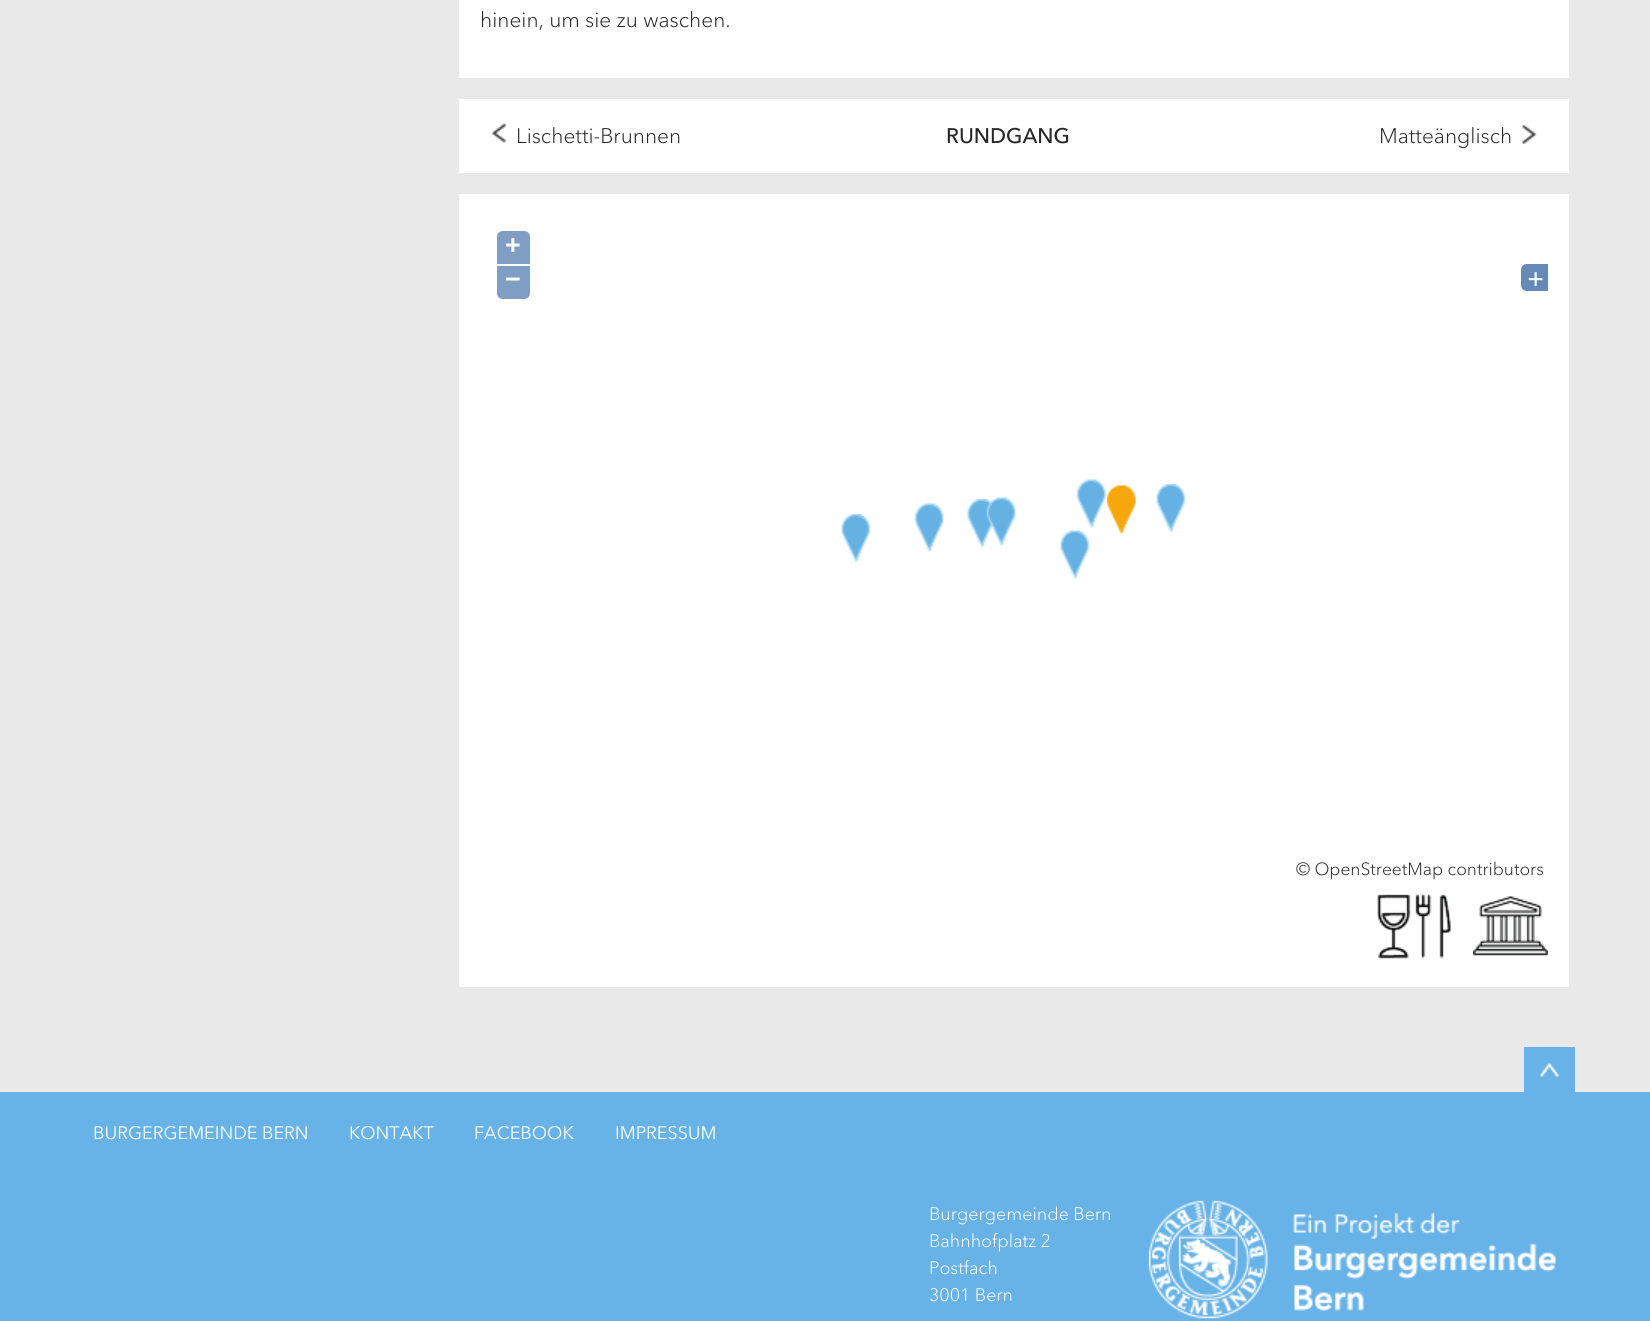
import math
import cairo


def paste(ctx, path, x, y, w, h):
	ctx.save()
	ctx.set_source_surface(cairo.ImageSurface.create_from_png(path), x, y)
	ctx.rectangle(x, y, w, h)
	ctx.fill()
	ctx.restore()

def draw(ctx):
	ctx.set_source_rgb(0.914, 0.914, 0.914)
	ctx.paint()
	ctx.set_source_rgb(1, 1, 1)
	ctx.rectangle(459, 0, 1110, 78)
	ctx.fill()
	ctx.select_font_face('Avenir Next Light')
	ctx.set_font_size(21)
	ctx.set_source_rgb(0.157, 0.157, 0.157)
	ctx.move_to(480, 27)
	ctx.show_text('hinein, um sie zu waschen.')
	ctx.set_source_rgb(1, 1, 1)
	ctx.rectangle(459, 99, 1110, 74)
	ctx.fill()
	paste(ctx, 'media/1.png', 491, 123, 15, 20)
	ctx.set_source_rgb(0.157, 0.157, 0.157)
	ctx.move_to(516, 143)
	ctx.show_text('Lischetti-Brunnen')
	ctx.select_font_face('Avenir Next Medium')
	ctx.move_to(946, 143)
	ctx.show_text('RUNDGANG')
	paste(ctx, 'media/2.png', 1522, 125, 15, 19)
	ctx.select_font_face('Avenir Next Light')
	ctx.move_to(1379, 143)
	ctx.show_text('Matteänglisch')
	ctx.set_source_rgb(1, 1, 1)
	ctx.rectangle(459, 194, 1110, 793)
	ctx.fill()
	ctx.set_source_rgb(0.502, 0.62, 0.769)
	ctx.new_path()
	ctx.move_to(503, 231)
	ctx.line_to(524, 231)
	ctx.curve_to(527.5, 231, 530, 233.5, 530, 237)
	ctx.line_to(530, 264)
	ctx.line_to(497, 264)
	ctx.line_to(497, 237)
	ctx.curve_to(497, 233.5, 499.5, 231, 503, 231)
	ctx.close_path()
	ctx.fill()
	ctx.select_font_face('Liberation Sans', cairo.FONT_SLANT_NORMAL, cairo.FONT_WEIGHT_BOLD)
	ctx.set_font_size(27)
	ctx.set_source_rgb(1, 1, 1)
	ctx.move_to(505, 254)
	ctx.show_text('+')
	ctx.set_source_rgb(0.502, 0.62, 0.769)
	ctx.new_path()
	ctx.move_to(497, 266)
	ctx.line_to(530, 266)
	ctx.line_to(530, 293)
	ctx.curve_to(530, 296.5, 527.5, 299, 524, 299)
	ctx.line_to(503, 299)
	ctx.curve_to(499.5, 299, 497, 296.5, 497, 293)
	ctx.close_path()
	ctx.fill()
	ctx.set_source_rgb(1, 1, 1)
	ctx.move_to(505, 288)
	ctx.show_text('−')
	ctx.set_source_rgb(0.4, 0.541, 0.722)
	ctx.new_path()
	ctx.move_to(1527, 264)
	ctx.line_to(1548, 264)
	ctx.line_to(1548, 291)
	ctx.line_to(1527, 291)
	ctx.curve_to(1523.5, 291, 1521, 288.5, 1521, 285)
	ctx.line_to(1521, 270)
	ctx.curve_to(1521, 266.5, 1523.5, 264, 1527, 264)
	ctx.close_path()
	ctx.fill()
	ctx.select_font_face('Avenir Next Medium')
	ctx.set_font_size(26)
	ctx.set_source_rgb(1, 1, 1)
	ctx.move_to(1527, 287)
	ctx.show_text('+')
	paste(ctx, 'media/3.png', 841, 479, 345, 100)
	ctx.select_font_face('Avenir Next Light')
	ctx.set_font_size(17.5)
	ctx.set_source_rgb(0.157, 0.157, 0.157)
	ctx.move_to(1296, 875)
	ctx.show_text('© OpenStreetMap contributors')
	paste(ctx, 'media/4.png', 1377, 894, 74, 65)
	paste(ctx, 'media/5.png', 1473, 896, 75, 60)
	ctx.set_source_rgb(0.404, 0.698, 0.906)
	ctx.rectangle(0, 1092, 1650, 229)
	ctx.fill()
	ctx.rectangle(1524, 1047, 51, 45)
	ctx.fill()
	paste(ctx, 'media/6.png', 1540, 1062, 19, 15)
	ctx.select_font_face('Avenir Next')
	ctx.set_font_size(18)
	ctx.set_source_rgb(1, 1, 1)
	for x, y, s in [
		(93, 1139, 'BURGERGEMEINDE BERN'),
		(349, 1139, 'KONTAKT'),
		(474, 1139, 'FACEBOOK'),
		(615, 1139, 'IMPRESSUM'),
	]:
		ctx.move_to(x, y)
		ctx.show_text(s)
	ctx.select_font_face('Avenir Next Light')
	for x, y, s in [
		(929, 1220, 'Burgergemeinde Bern'),
		(929, 1247, 'Bahnhofplatz 2'),
		(929, 1274, 'Postfach'),
		(929, 1301, '3001 Bern'),
	]:
		ctx.move_to(x, y)
		ctx.show_text(s)
	paste(ctx, 'media/7.png', 1148, 1200, 408, 119)


surface = cairo.ImageSurface(cairo.FORMAT_RGB24, 1650, 1321)
ctx = cairo.Context(surface)
options = cairo.FontOptions()
options.set_hint_metrics(cairo.HINT_METRICS_OFF)
options.set_hint_style(cairo.HINT_STYLE_NONE)
ctx.set_font_options(options)
ctx.set_miter_limit(4)
draw(ctx)
surface.write_to_png('image.png')
